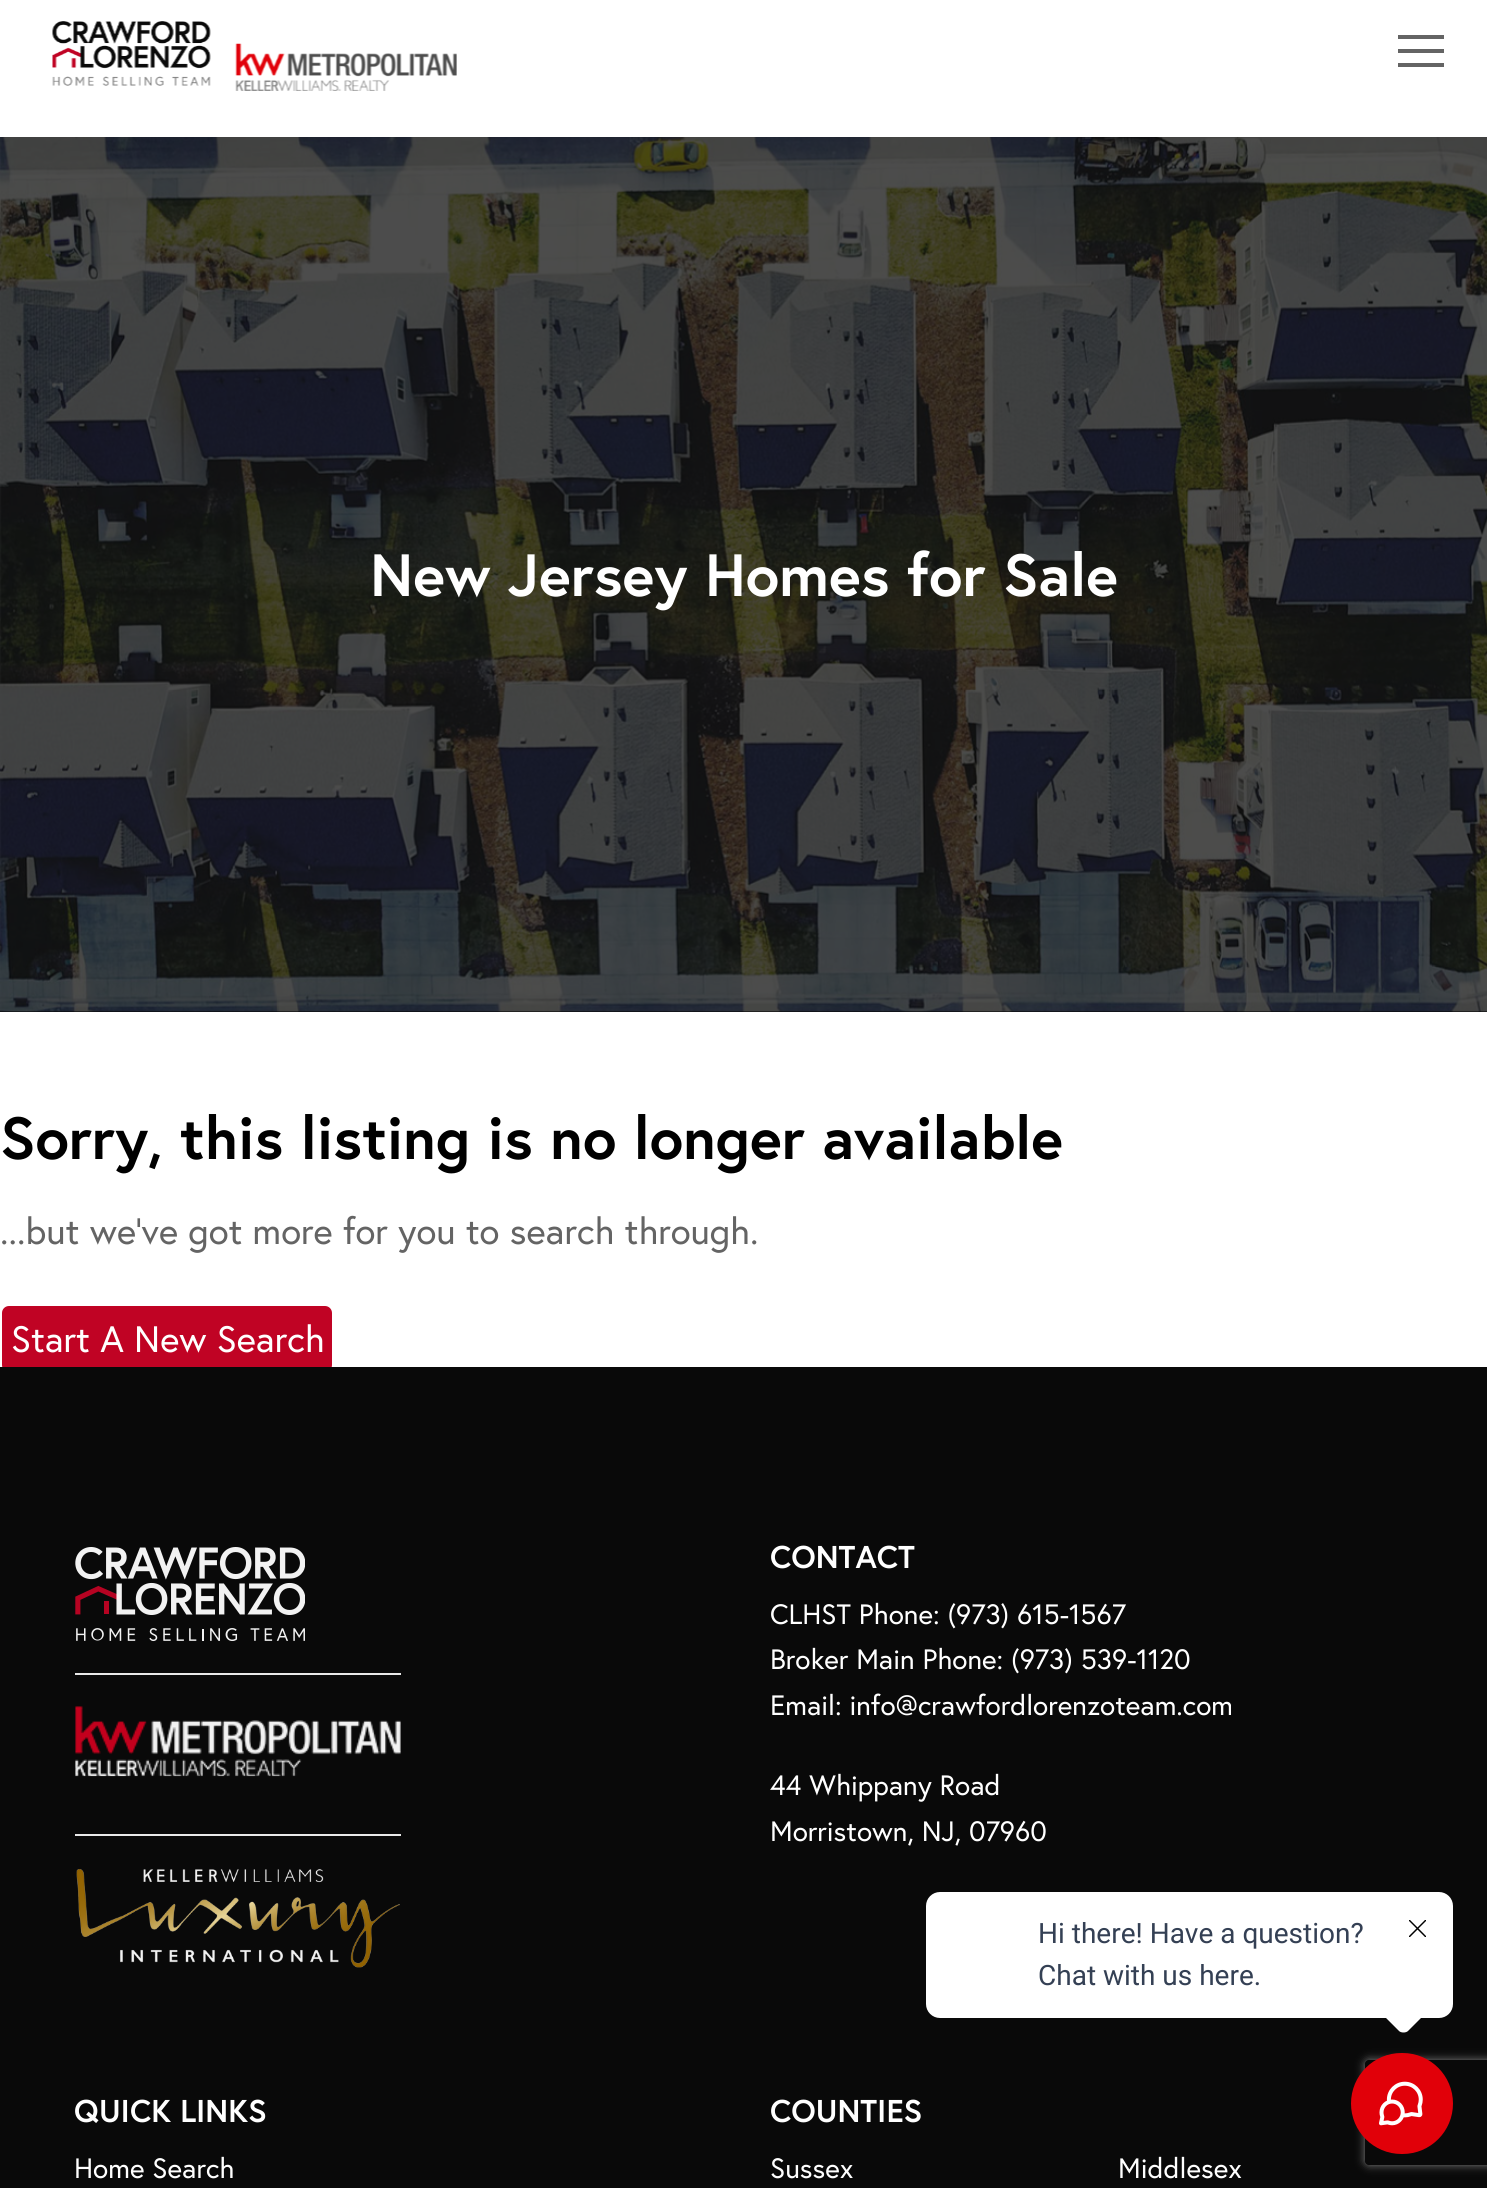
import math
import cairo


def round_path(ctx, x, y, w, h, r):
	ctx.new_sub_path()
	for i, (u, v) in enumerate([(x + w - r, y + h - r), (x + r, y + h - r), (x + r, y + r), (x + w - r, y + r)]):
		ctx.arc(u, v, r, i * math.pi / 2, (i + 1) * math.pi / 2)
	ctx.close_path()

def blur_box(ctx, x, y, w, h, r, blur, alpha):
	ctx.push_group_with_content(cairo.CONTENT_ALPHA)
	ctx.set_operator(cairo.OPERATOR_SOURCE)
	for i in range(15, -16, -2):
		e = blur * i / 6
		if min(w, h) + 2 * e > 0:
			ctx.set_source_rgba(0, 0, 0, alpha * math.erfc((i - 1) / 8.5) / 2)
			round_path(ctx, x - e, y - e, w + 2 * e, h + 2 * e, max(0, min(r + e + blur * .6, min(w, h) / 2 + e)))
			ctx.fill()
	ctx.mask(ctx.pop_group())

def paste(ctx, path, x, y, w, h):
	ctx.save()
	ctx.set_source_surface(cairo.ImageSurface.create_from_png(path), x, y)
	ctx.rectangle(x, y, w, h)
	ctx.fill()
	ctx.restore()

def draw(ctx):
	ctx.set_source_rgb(0.039, 0.039, 0.039)
	ctx.paint()
	ctx.set_source_rgb(1, 1, 1)
	ctx.rectangle(0, 0, 1487, 1367)
	ctx.fill()
	paste(ctx, 'media/1.png', 52, 21, 159, 65)
	paste(ctx, 'media/2.png', 235, 43, 222, 48)
	ctx.set_source_rgb(0.392, 0.392, 0.392)
	ctx.rectangle(1398, 35, 46, 4)
	ctx.rectangle(1398, 49, 46, 4)
	ctx.rectangle(1398, 63, 46, 4)
	ctx.fill()
	ctx.set_source_rgb(0, 0, 0)
	ctx.rectangle(0, 1011, 1487, 1)
	ctx.fill()
	paste(ctx, 'media/3.png', 0, 137, 1487, 875)
	ctx.select_font_face('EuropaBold', cairo.FONT_SLANT_NORMAL, cairo.FONT_WEIGHT_BOLD)
	ctx.set_font_size(59.5)
	ctx.set_source_rgb(1, 1, 1)
	ctx.move_to(370, 596)
	ctx.show_text('New Jersey Homes for Sale')
	ctx.set_source_rgb(0, 0, 0)
	ctx.move_to(0, 1159)
	ctx.show_text('Sorry, this listing is no longer available')
	ctx.select_font_face('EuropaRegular')
	ctx.set_font_size(36.75)
	ctx.set_source_rgb(0.392, 0.392, 0.392)
	ctx.move_to(0, 1244)
	ctx.show_text('...but we\'ve got more for you to search through.')
	ctx.save()
	ctx.rectangle(0, 105, 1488, 1262)
	ctx.clip()
	ctx.set_source_rgb(0.753, 0.012, 0.141)
	round_path(ctx, 1, 1305, 332, 68, 8)
	ctx.fill_preserve()
	ctx.set_source_rgb(1, 1, 1)
	ctx.stroke()
	ctx.restore()
	ctx.set_source_rgb(1, 1, 1)
	ctx.move_to(11, 1352)
	ctx.show_text('Start A New Search')
	paste(ctx, 'media/4.png', 75, 1547, 230, 95)
	ctx.set_source_rgb(0.914, 0.914, 0.914)
	ctx.rectangle(75, 1673, 326, 2)
	ctx.fill()
	paste(ctx, 'media/5.png', 75, 1706, 326, 71)
	ctx.rectangle(75, 1834, 326, 2)
	ctx.fill()
	paste(ctx, 'media/6.png', 76, 1869, 324, 99)
	ctx.select_font_face('EuropaBold', cairo.FONT_SLANT_NORMAL, cairo.FONT_WEIGHT_BOLD)
	ctx.set_font_size(31.5)
	ctx.set_source_rgb(1, 1, 1)
	ctx.move_to(770, 1568)
	ctx.show_text('CONTACT')
	ctx.select_font_face('EuropaRegular')
	ctx.set_font_size(28)
	for x, y, s in [
		(770, 1624, 'CLHST Phone: (973) 615-1567'),
		(770, 1669, 'Broker Main Phone: (973) 539-1120'),
		(770, 1715, 'Email: info@crawfordlorenzoteam.com'),
		(770, 1795, '44 Whippany Road'),
		(770, 1841, 'Morristown, NJ, 07960'),
	]:
		ctx.move_to(x, y)
		ctx.show_text(s)
	ctx.select_font_face('EuropaBold', cairo.FONT_SLANT_NORMAL, cairo.FONT_WEIGHT_BOLD)
	ctx.set_font_size(31.5)
	ctx.move_to(74, 2122)
	ctx.show_text('QUICK LINKS')
	ctx.select_font_face('EuropaRegular')
	ctx.set_font_size(28)
	ctx.move_to(74, 2178)
	ctx.show_text('Home Search')
	ctx.select_font_face('EuropaBold', cairo.FONT_SLANT_NORMAL, cairo.FONT_WEIGHT_BOLD)
	ctx.set_font_size(31.5)
	ctx.move_to(770, 2122)
	ctx.show_text('COUNTIES')
	ctx.select_font_face('EuropaRegular')
	ctx.set_font_size(28)
	ctx.move_to(770, 2178)
	ctx.show_text('Sussex')
	ctx.move_to(1118, 2178)
	ctx.show_text('Middlesex')
	round_path(ctx, 926, 1892, 527, 126, 14)
	ctx.fill()
	ctx.select_font_face('Roboto')
	ctx.set_source_rgb(0.204, 0.251, 0.329)
	ctx.move_to(1038, 1943)
	ctx.show_text('Hi there! Have a question?')
	ctx.move_to(1038, 1985)
	ctx.show_text('Chat with us here.')
	ctx.set_source_rgb(1, 1, 1)
	ctx.new_path()
	ctx.move_to(1408, 1991)
	ctx.line_to(1423, 2006)
	ctx.curve_to(1426, 2009, 1426, 2013, 1423, 2016)
	ctx.line_to(1408, 2031)
	ctx.curve_to(1406, 2033, 1401, 2033, 1399, 2031)
	ctx.line_to(1384, 2016)
	ctx.curve_to(1381, 2013, 1381, 2009, 1384, 2006)
	ctx.line_to(1399, 1991)
	ctx.curve_to(1401, 1988, 1406, 1988, 1408, 1991)
	ctx.close_path()
	ctx.fill()
	paste(ctx, 'media/7.png', 1409, 1920, 17, 17)
	ctx.save()
	ctx.set_fill_rule(cairo.FILL_RULE_EVEN_ODD)
	ctx.new_path()
	ctx.move_to(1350, 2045)
	ctx.line_to(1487, 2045)
	ctx.line_to(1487, 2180)
	ctx.line_to(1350, 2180)
	ctx.close_path()
	ctx.move_to(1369, 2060)
	ctx.line_to(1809, 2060)
	ctx.curve_to(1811, 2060, 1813, 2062, 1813, 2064)
	ctx.line_to(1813, 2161)
	ctx.curve_to(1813, 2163, 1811, 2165, 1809, 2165)
	ctx.line_to(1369, 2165)
	ctx.curve_to(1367, 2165, 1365, 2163, 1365, 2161)
	ctx.line_to(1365, 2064)
	ctx.curve_to(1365, 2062, 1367, 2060, 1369, 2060)
	ctx.close_path()
	ctx.clip()
	ctx.set_source_rgb(0.502, 0.502, 0.502)
	blur_box(ctx, 1365, 2060, 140, 105, 4, 4.5, 1)
	ctx.restore()
	ctx.set_source_rgb(0.882, 0, 0.039)
	round_path(ctx, 1351, 2053, 102, 101, 50.5)
	ctx.fill()
	paste(ctx, 'media/8.png', 1379, 2081, 44, 45)


surface = cairo.ImageSurface(cairo.FORMAT_RGB24, 1487, 2188)
ctx = cairo.Context(surface)
options = cairo.FontOptions()
options.set_hint_metrics(cairo.HINT_METRICS_OFF)
options.set_hint_style(cairo.HINT_STYLE_NONE)
ctx.set_font_options(options)
ctx.set_miter_limit(4)
draw(ctx)
surface.write_to_png('image.png')
